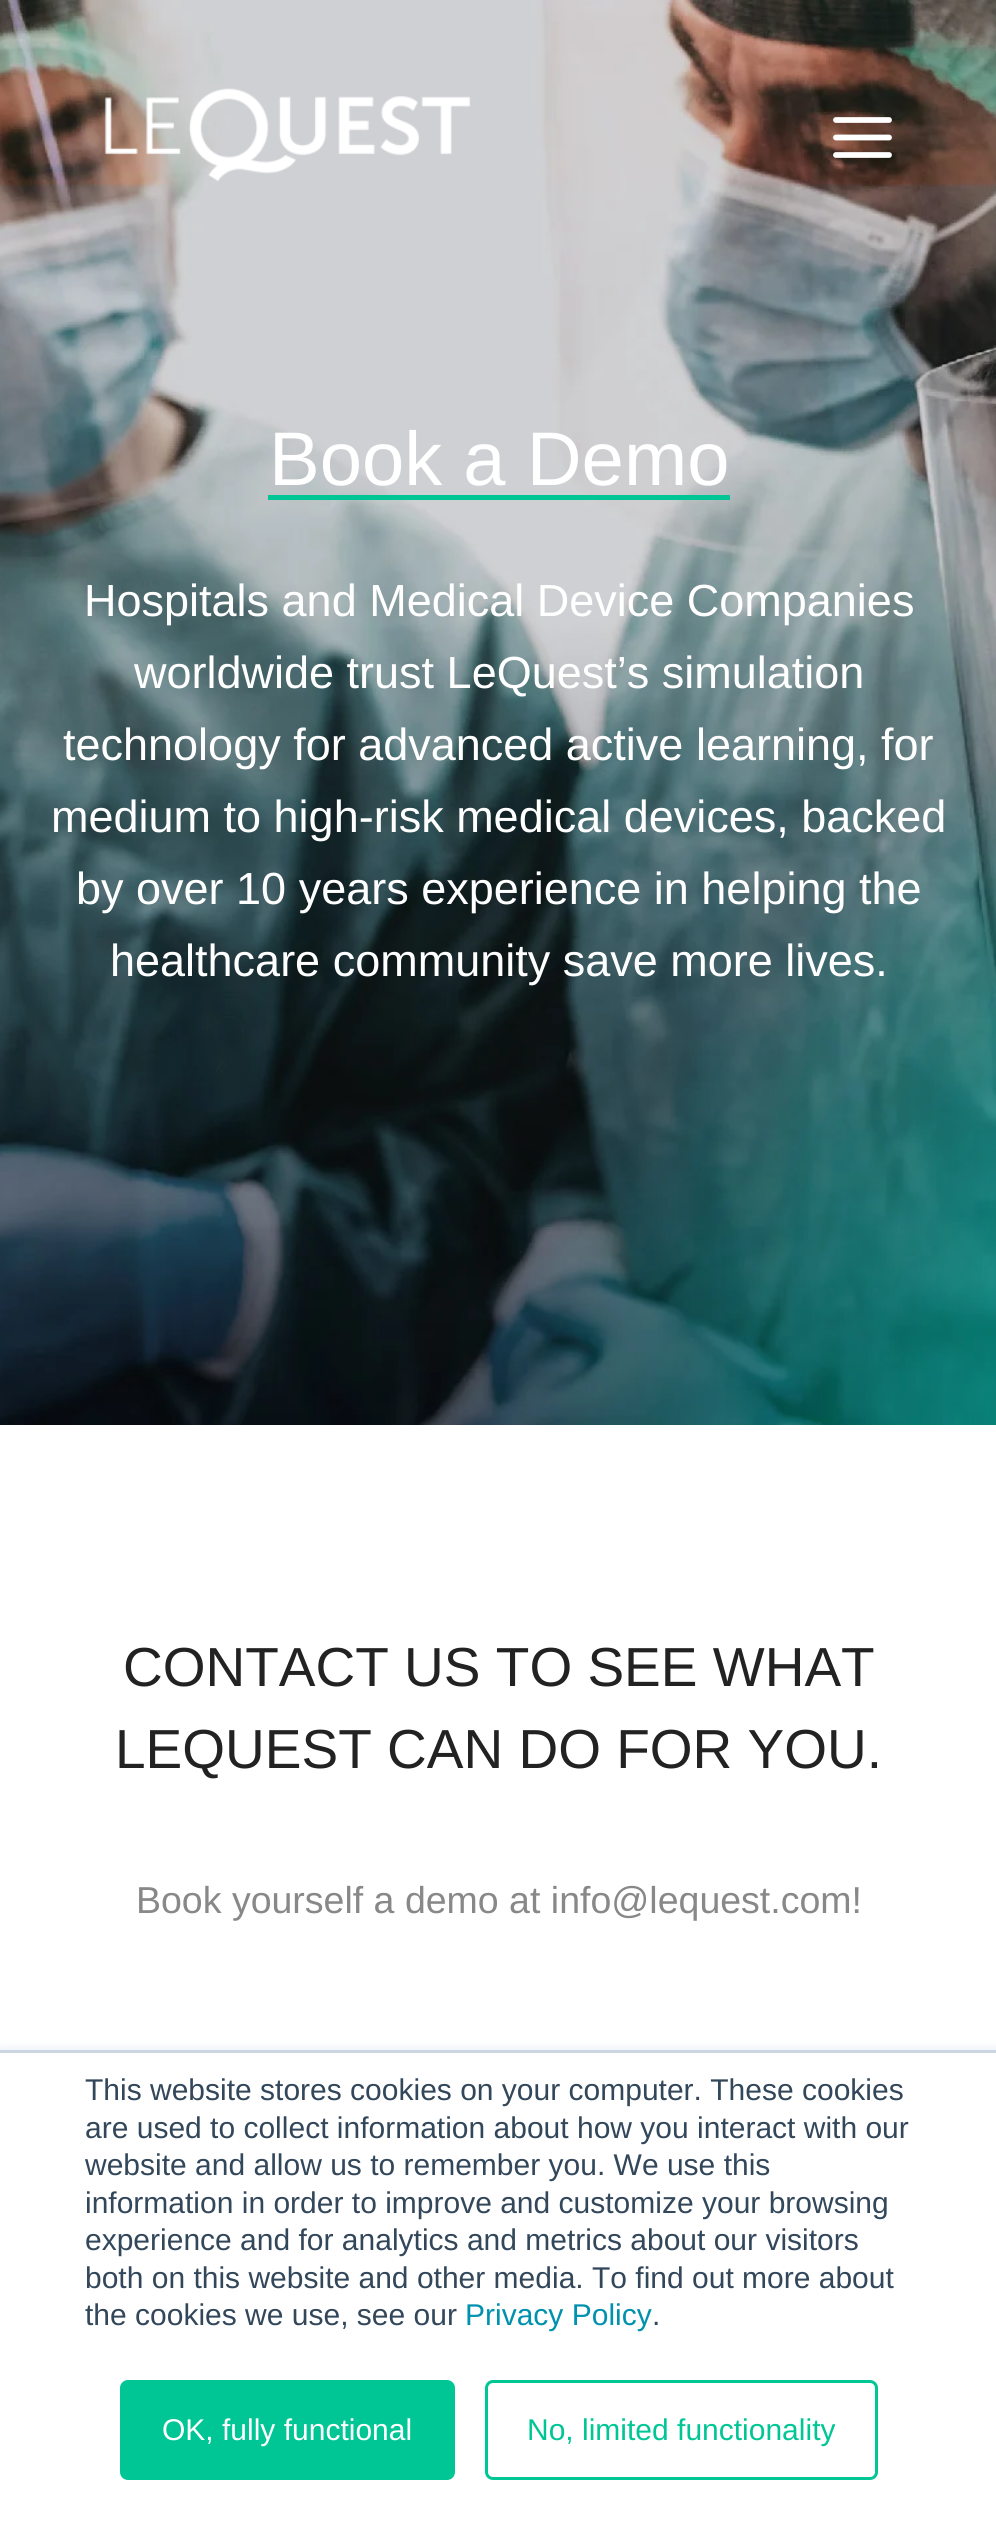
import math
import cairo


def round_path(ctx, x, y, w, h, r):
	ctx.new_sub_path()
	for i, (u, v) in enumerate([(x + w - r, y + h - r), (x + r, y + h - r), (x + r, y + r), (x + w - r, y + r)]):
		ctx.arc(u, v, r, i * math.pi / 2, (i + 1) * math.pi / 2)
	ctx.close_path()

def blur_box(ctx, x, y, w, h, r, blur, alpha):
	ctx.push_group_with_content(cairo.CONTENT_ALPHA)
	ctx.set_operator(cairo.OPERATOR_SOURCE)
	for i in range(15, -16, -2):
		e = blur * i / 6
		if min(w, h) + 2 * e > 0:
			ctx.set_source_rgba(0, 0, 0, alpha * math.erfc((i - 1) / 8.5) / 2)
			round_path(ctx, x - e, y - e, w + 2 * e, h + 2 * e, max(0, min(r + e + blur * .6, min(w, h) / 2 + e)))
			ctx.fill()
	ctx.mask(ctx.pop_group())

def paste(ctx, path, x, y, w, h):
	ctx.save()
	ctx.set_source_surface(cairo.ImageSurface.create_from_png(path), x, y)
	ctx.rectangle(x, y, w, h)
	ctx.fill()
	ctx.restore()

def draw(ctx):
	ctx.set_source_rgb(1, 1, 1)
	ctx.paint()
	paste(ctx, 'media/2.png', 0, 0, 996, 1425)
	paste(ctx, 'media/1.png', 104, 88, 367, 94)
	ctx.new_path()
	ctx.move_to(836, 137.5)
	ctx.line_to(889, 137.5)
	ctx.move_to(836, 120)
	ctx.line_to(889, 120)
	ctx.move_to(836, 155)
	ctx.line_to(889, 155)
	ctx.set_source_rgb(1, 1, 1)
	ctx.set_line_width(5.8)
	ctx.set_line_cap(cairo.LINE_CAP_ROUND)
	ctx.set_line_join(cairo.LINE_JOIN_ROUND)
	ctx.stroke()
	ctx.select_font_face('Liberation Sans')
	ctx.set_font_size(76)
	ctx.move_to(269, 485)
	ctx.show_text('Book a Demo')
	ctx.set_source_rgb(0, 0.776, 0.588)
	ctx.rectangle(268, 495, 462, 5)
	ctx.fill()
	ctx.set_font_size(45)
	ctx.set_source_rgb(1, 1, 1)
	for x, y, s in [
		(84, 616, 'Hospitals and Medical Device Companies'),
		(134, 688, 'worldwide trust LeQuest’s simulation'),
		(63, 760, 'technology for advanced active learning, for'),
		(51, 832, 'medium to high-risk medical devices, backed'),
		(76, 904, 'by over 10 years experience in helping the'),
		(110, 976, 'healthcare community save more lives.'),
	]:
		ctx.move_to(x, y)
		ctx.show_text(s)
	ctx.set_font_size(55)
	ctx.set_source_rgb(0.133, 0.133, 0.133)
	ctx.move_to(123, 1686)
	ctx.show_text('CONTACT US TO SEE WHAT')
	ctx.move_to(115, 1768)
	ctx.show_text('LEQUEST CAN DO FOR YOU.')
	ctx.set_font_size(37.5)
	ctx.set_source_rgb(0.533, 0.533, 0.533)
	ctx.move_to(136, 1913)
	ctx.show_text('Book yourself a demo at info@lequest.com!')
	ctx.set_source_rgb(0.918, 0.941, 0.965)
	blur_box(ctx, 0, 2048, 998, 480, 0, 4, 1)
	ctx.set_source_rgb(1, 1, 1)
	ctx.rectangle(0, 2053, 996, 476)
	ctx.fill()
	ctx.set_source_rgb(0.796, 0.839, 0.886)
	ctx.rectangle(0, 2050, 996, 3)
	ctx.fill()
	ctx.set_font_size(30)
	ctx.set_source_rgb(0.2, 0.278, 0.357)
	for x, y, s in [
		(85, 2100, 'This website stores cookies on your computer. These cookies'),
		(85, 2138, 'are used to collect information about how you interact with our'),
		(85, 2175, 'website and allow us to remember you. We use this'),
		(85, 2213, 'information in order to improve and customize your browsing'),
		(85, 2250, 'experience and for analytics and metrics about our visitors'),
		(85, 2288, 'both on this website and other media. To find out more about'),
		(85, 2325, 'the cookies we use, see our'),
	]:
		ctx.move_to(x, y)
		ctx.show_text(s)
	ctx.set_source_rgb(0, 0.569, 0.682)
	ctx.move_to(465, 2325)
	ctx.show_text('Privacy Policy')
	ctx.set_source_rgb(0.2, 0.278, 0.357)
	ctx.move_to(652, 2325)
	ctx.show_text('.')
	ctx.set_source_rgb(0, 0.776, 0.588)
	round_path(ctx, 121.5, 2381.5, 332, 97, 6.5)
	ctx.fill_preserve()
	ctx.set_line_width(3)
	ctx.set_line_cap(cairo.LINE_CAP_BUTT)
	ctx.set_line_join(cairo.LINE_JOIN_MITER)
	ctx.stroke()
	ctx.set_source_rgb(1, 1, 1)
	ctx.move_to(162, 2440)
	ctx.show_text('OK, fully functional')
	round_path(ctx, 486.5, 2381.5, 390, 97, 6.5)
	ctx.set_source_rgb(0, 0.776, 0.588)
	ctx.stroke()
	ctx.move_to(527, 2440)
	ctx.show_text('No, limited functionality')


surface = cairo.ImageSurface(cairo.FORMAT_RGB24, 996, 2529)
ctx = cairo.Context(surface)
options = cairo.FontOptions()
options.set_hint_metrics(cairo.HINT_METRICS_OFF)
options.set_hint_style(cairo.HINT_STYLE_NONE)
ctx.set_font_options(options)
ctx.set_miter_limit(4)
draw(ctx)
surface.write_to_png('image.png')
